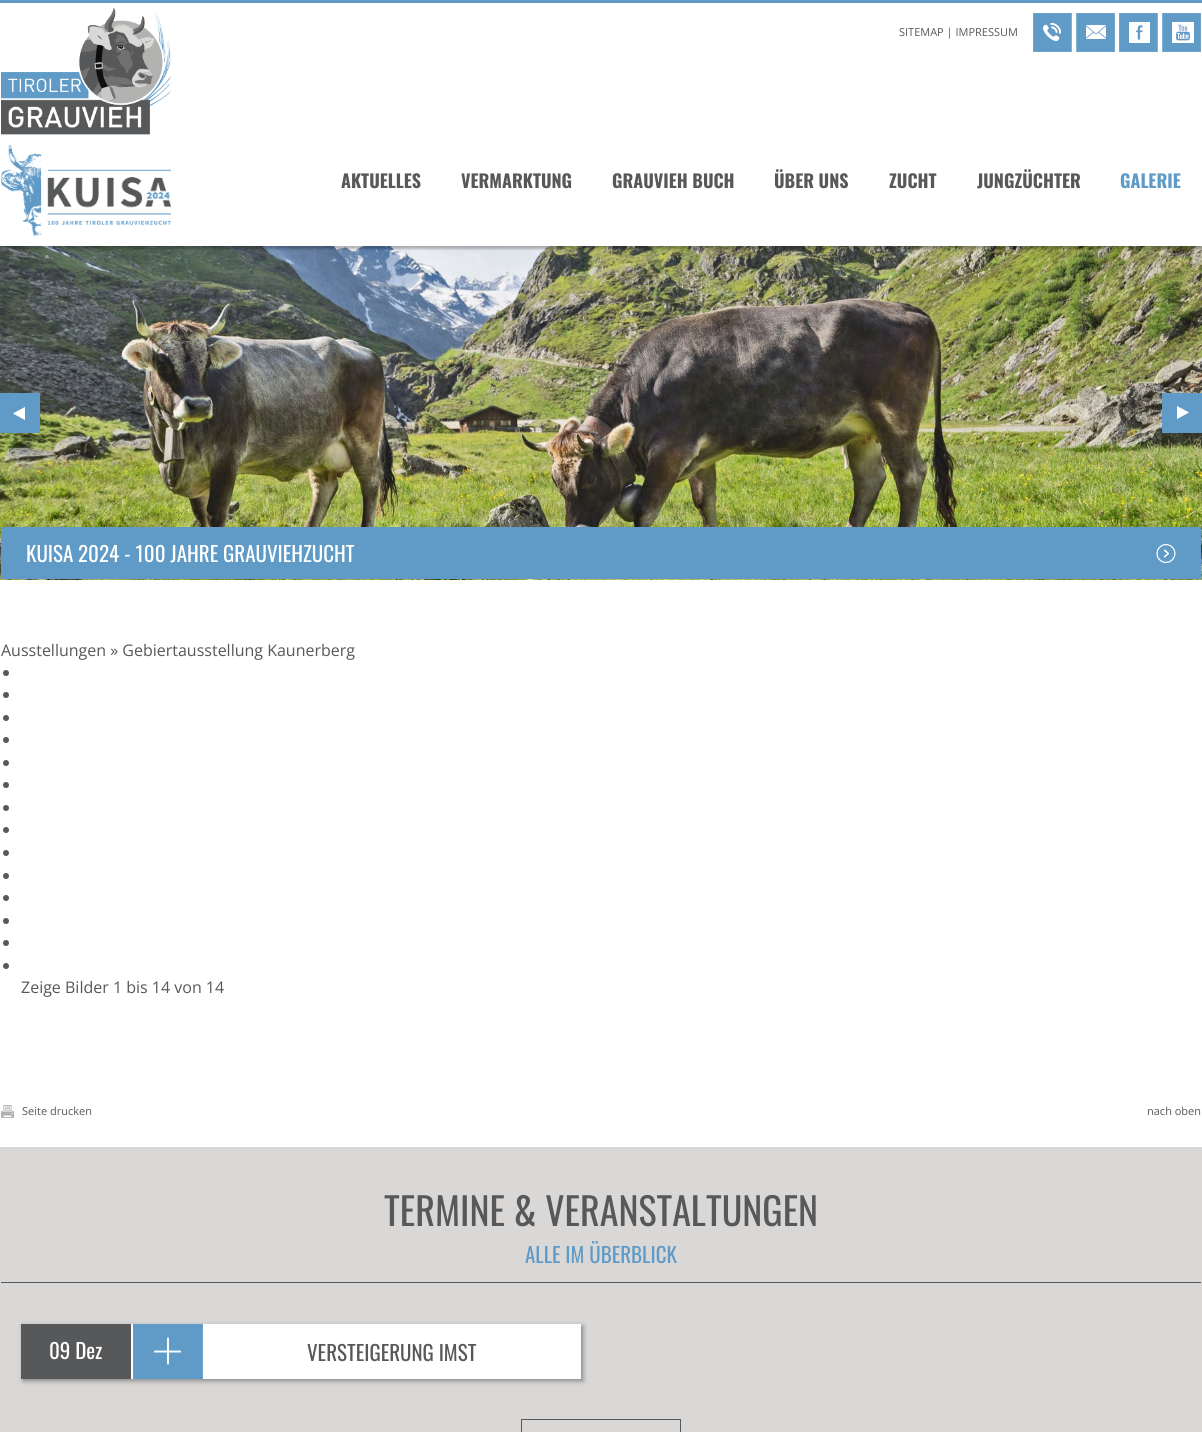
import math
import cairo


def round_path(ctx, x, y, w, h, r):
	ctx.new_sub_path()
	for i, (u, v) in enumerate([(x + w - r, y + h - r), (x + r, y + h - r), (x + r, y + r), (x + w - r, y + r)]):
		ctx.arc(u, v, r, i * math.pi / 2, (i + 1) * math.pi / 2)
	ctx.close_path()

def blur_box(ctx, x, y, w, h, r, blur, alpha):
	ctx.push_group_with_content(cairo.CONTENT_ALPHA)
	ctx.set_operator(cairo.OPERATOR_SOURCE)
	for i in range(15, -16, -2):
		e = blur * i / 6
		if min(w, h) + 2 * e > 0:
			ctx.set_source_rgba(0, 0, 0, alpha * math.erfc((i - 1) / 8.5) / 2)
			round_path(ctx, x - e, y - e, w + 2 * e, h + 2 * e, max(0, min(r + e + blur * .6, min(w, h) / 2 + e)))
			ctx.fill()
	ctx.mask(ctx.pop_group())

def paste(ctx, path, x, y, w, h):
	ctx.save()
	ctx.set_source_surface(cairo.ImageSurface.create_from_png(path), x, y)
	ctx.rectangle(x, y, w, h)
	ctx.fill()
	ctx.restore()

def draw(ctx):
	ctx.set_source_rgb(1, 1, 1)
	ctx.paint()
	ctx.set_source_rgb(0.373, 0.608, 0.776)
	ctx.rectangle(0, 0, 1202, 3)
	ctx.fill()
	paste(ctx, 'media/1.png', 1, 8, 170, 127)
	paste(ctx, 'media/2.png', 1, 145, 170, 91)
	ctx.select_font_face('Open Sans')
	ctx.set_font_size(11)
	ctx.set_source_rgb(0.341, 0.345, 0.353)
	ctx.move_to(899, 36)
	ctx.show_text('SITEMAP | IMPRESSUM')
	paste(ctx, 'media/3.png', 1033, 13, 39, 39)
	paste(ctx, 'media/4.png', 1076, 13, 39, 39)
	paste(ctx, 'media/5.png', 1119, 13, 39, 39)
	paste(ctx, 'media/6.png', 1162, 13, 39, 39)
	ctx.select_font_face('Oswald', cairo.FONT_SLANT_NORMAL, cairo.FONT_WEIGHT_BOLD)
	ctx.set_font_size(18)
	for x, y, s in [
		(341, 188, 'AKTUELLES'),
		(461, 188, 'VERMARKTUNG'),
		(612, 188, 'GRAUVIEH BUCH'),
		(774, 188, 'ÜBER UNS'),
		(889, 188, 'ZUCHT'),
		(977, 188, 'JUNGZÜCHTER'),
	]:
		ctx.move_to(x, y)
		ctx.show_text(s)
	ctx.set_source_rgb(0.373, 0.608, 0.776)
	ctx.move_to(1120, 188)
	ctx.show_text('GALERIE')
	paste(ctx, 'media/7.png', 0, 246, 1202, 334)
	paste(ctx, 'media/8.png', 0, 393, 40, 40)
	paste(ctx, 'media/9.png', 1162, 393, 40, 40)
	paste(ctx, 'media/10.png', 0, 246, 1202, 5)
	ctx.rectangle(1, 527, 1200, 52)
	ctx.fill()
	paste(ctx, 'media/11.png', 1156, 544, 20, 19)
	ctx.select_font_face('Oswald')
	ctx.set_font_size(21)
	ctx.set_source_rgb(1, 1, 1)
	ctx.move_to(26, 562)
	ctx.show_text('KUISA 2024 - 100 JAHRE GRAUVIEHZUCHT')
	ctx.select_font_face('Open Sans')
	ctx.set_font_size(16)
	ctx.set_source_rgb(0.341, 0.345, 0.353)
	ctx.move_to(1, 656)
	ctx.show_text('Ausstellungen » Gebiertausstellung Kaunerberg')
	ctx.new_path()
	ctx.arc(6, 673, 3, 0, 2 * math.pi)
	ctx.fill()
	ctx.arc(6, 695, 3, 0, 2 * math.pi)
	ctx.fill()
	ctx.arc(6, 718, 3, 0, 2 * math.pi)
	ctx.fill()
	ctx.arc(6, 740, 3, 0, 2 * math.pi)
	ctx.fill()
	ctx.arc(6, 763, 3, 0, 2 * math.pi)
	ctx.fill()
	ctx.arc(6, 785, 3, 0, 2 * math.pi)
	ctx.fill()
	ctx.arc(6, 808, 3, 0, 2 * math.pi)
	ctx.fill()
	ctx.arc(6, 830, 3, 0, 2 * math.pi)
	ctx.fill()
	ctx.arc(6, 853, 3, 0, 2 * math.pi)
	ctx.fill()
	ctx.arc(6, 876, 3, 0, 2 * math.pi)
	ctx.fill()
	ctx.arc(6, 898, 3, 0, 2 * math.pi)
	ctx.fill()
	ctx.arc(6, 921, 3, 0, 2 * math.pi)
	ctx.fill()
	ctx.arc(6, 943, 3, 0, 2 * math.pi)
	ctx.fill()
	ctx.arc(6, 966, 3, 0, 2 * math.pi)
	ctx.fill()
	ctx.move_to(21, 993)
	ctx.show_text('Zeige Bilder 1 bis 14 von 14')
	paste(ctx, 'media/12.png', 1, 1105, 13, 13)
	ctx.set_font_size(11)
	ctx.move_to(22, 1115)
	ctx.show_text('Seite drucken')
	ctx.move_to(1147, 1115)
	ctx.show_text('nach oben')
	ctx.set_source_rgb(0.855, 0.847, 0.839)
	ctx.rectangle(0, 1147, 1202, 285)
	ctx.fill()
	ctx.select_font_face('Oswald')
	ctx.set_font_size(38)
	ctx.set_source_rgb(0.341, 0.345, 0.353)
	ctx.move_to(384, 1226)
	ctx.show_text('TERMINE & VERANSTALTUNGEN')
	ctx.rectangle(1, 1282, 1200, 1)
	ctx.fill()
	ctx.set_font_size(21)
	ctx.set_source_rgb(0.373, 0.608, 0.776)
	ctx.move_to(525, 1263)
	ctx.show_text('ALLE IM ÜBERBLICK')
	ctx.set_source_rgb(0.529, 0.529, 0.529)
	blur_box(ctx, 23, 1326, 560, 55, 0, 2.5, 1)
	ctx.set_source_rgb(0.341, 0.345, 0.353)
	ctx.rectangle(21, 1324, 110, 55)
	ctx.fill()
	ctx.set_source_rgb(1, 1, 1)
	ctx.rectangle(131, 1324, 2, 55)
	ctx.fill()
	ctx.move_to(49, 1359)
	ctx.show_text('09 Dez')
	ctx.rectangle(203, 1324, 378, 55)
	ctx.fill()
	paste(ctx, 'media/13.png', 133, 1324, 70, 55)
	ctx.set_source_rgb(0.341, 0.345, 0.353)
	ctx.move_to(307, 1361)
	ctx.show_text('VERSTEIGERUNG IMST')
	ctx.rectangle(521.5, 1419.5, 159, 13)
	ctx.set_line_width(1)
	ctx.stroke()


surface = cairo.ImageSurface(cairo.FORMAT_RGB24, 1202, 1432)
ctx = cairo.Context(surface)
options = cairo.FontOptions()
options.set_hint_metrics(cairo.HINT_METRICS_OFF)
options.set_hint_style(cairo.HINT_STYLE_NONE)
ctx.set_font_options(options)
ctx.set_miter_limit(4)
draw(ctx)
surface.write_to_png('image.png')
